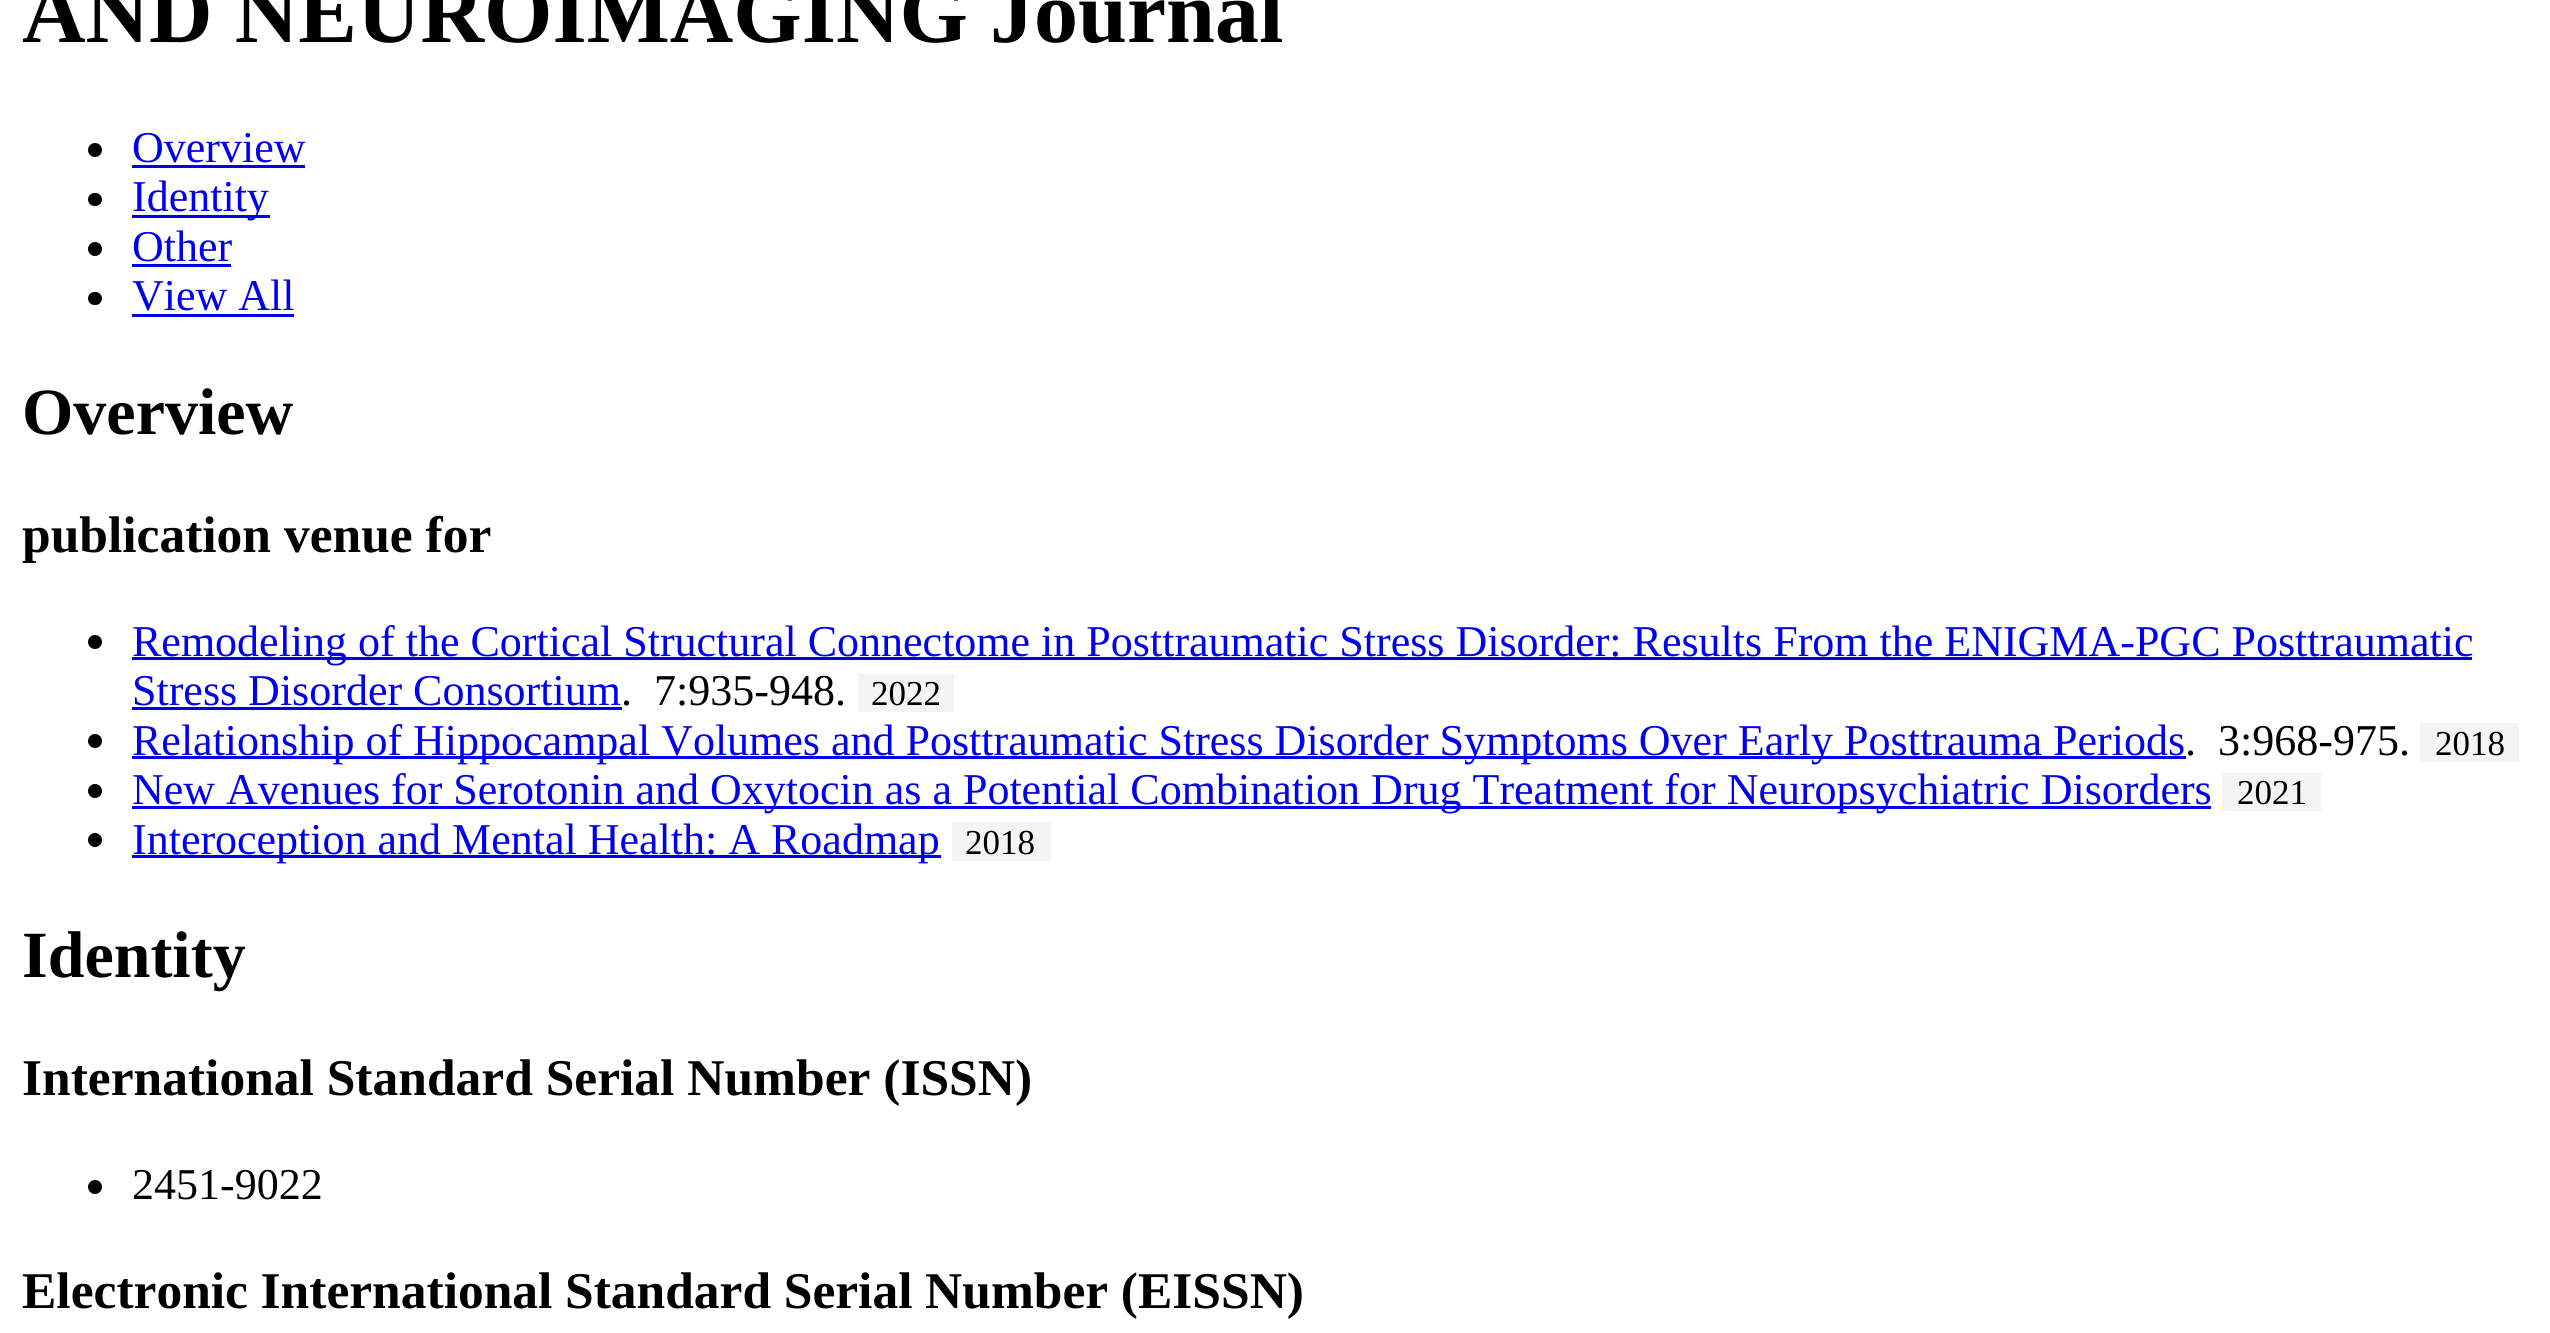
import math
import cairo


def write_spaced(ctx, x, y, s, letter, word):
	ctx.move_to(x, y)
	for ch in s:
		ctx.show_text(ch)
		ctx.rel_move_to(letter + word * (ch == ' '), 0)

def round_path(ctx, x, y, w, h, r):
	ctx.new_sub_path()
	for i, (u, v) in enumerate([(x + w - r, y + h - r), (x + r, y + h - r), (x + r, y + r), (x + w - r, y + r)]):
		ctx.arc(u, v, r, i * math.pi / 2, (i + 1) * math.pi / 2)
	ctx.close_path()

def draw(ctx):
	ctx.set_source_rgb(1, 1, 1)
	ctx.paint()
	ctx.select_font_face('Liberation Serif', cairo.FONT_SLANT_NORMAL, cairo.FONT_WEIGHT_BOLD)
	ctx.set_font_size(88)
	ctx.set_source_rgb(0, 0, 0)
	ctx.move_to(22, 42)
	ctx.show_text('AND NEUROIMAGING Journal')
	ctx.new_path()
	ctx.arc(95, 150, 7, 0, 2 * math.pi)
	ctx.fill()
	ctx.select_font_face('Liberation Serif')
	ctx.set_font_size(44)
	ctx.set_source_rgb(0, 0, 0.933)
	ctx.move_to(132, 162)
	ctx.show_text('Overview')
	ctx.rectangle(132, 165, 173, 3)
	ctx.fill()
	ctx.set_source_rgb(0, 0, 0)
	round_path(ctx, 88, 193, 14, 13, 6.5)
	ctx.fill()
	ctx.set_source_rgb(0, 0, 0.933)
	ctx.rectangle(132, 215, 138, 3)
	ctx.fill()
	ctx.move_to(132, 211)
	ctx.show_text('Identity')
	ctx.set_source_rgb(0, 0, 0)
	ctx.new_path()
	ctx.arc(95, 249, 7, 0, 2 * math.pi)
	ctx.fill()
	ctx.set_source_rgb(0, 0, 0.933)
	ctx.move_to(132, 261)
	ctx.show_text('Other')
	ctx.rectangle(132, 264, 99, 3)
	ctx.fill()
	ctx.set_source_rgb(0, 0, 0)
	round_path(ctx, 88, 292, 14, 13, 6.5)
	ctx.fill()
	ctx.set_source_rgb(0, 0, 0.933)
	ctx.move_to(132, 310)
	ctx.show_text('View All')
	ctx.rectangle(132, 314, 162, 3)
	ctx.fill()
	ctx.select_font_face('Liberation Serif', cairo.FONT_SLANT_NORMAL, cairo.FONT_WEIGHT_BOLD)
	ctx.set_font_size(66)
	ctx.set_source_rgb(0, 0, 0)
	ctx.move_to(22, 434)
	ctx.show_text('Overview')
	ctx.set_font_size(51.5)
	ctx.move_to(22, 552)
	ctx.show_text('publication venue for')
	ctx.new_path()
	ctx.arc(95, 642, 7, 0, 2 * math.pi)
	ctx.fill()
	ctx.set_source_rgb(0, 0, 0.933)
	ctx.rectangle(132, 657, 2340, 3)
	ctx.fill()
	ctx.select_font_face('Liberation Serif')
	ctx.set_font_size(44)
	ctx.move_to(132, 656)
	ctx.show_text('Remodeling of the Cortical Structural Connectome in Posttraumatic Stress Disorder: Results From the ENIGMA-PGC Posttraumatic')
	ctx.move_to(132, 705)
	ctx.show_text('Stress Disorder Consortium')
	ctx.rectangle(132, 707, 490, 3)
	ctx.fill()
	ctx.set_source_rgb(0, 0, 0)
	ctx.move_to(621, 705)
	ctx.show_text('.')
	ctx.move_to(654, 705)
	ctx.show_text('7:935-948.')
	ctx.set_source_rgb(0.957, 0.957, 0.957)
	ctx.rectangle(858, 674, 96, 38)
	ctx.fill()
	ctx.set_font_size(35)
	ctx.set_source_rgb(0, 0, 0)
	ctx.move_to(871, 705)
	ctx.show_text('2022')
	ctx.new_path()
	ctx.arc(95, 741, 7, 0, 2 * math.pi)
	ctx.fill()
	ctx.set_source_rgb(0, 0, 0.933)
	ctx.rectangle(132, 756, 2054, 3)
	ctx.fill()
	ctx.set_font_size(44)
	ctx.move_to(132, 755)
	ctx.show_text('Relationship of Hippocampal Volumes and Posttraumatic Stress Disorder Symptoms Over Early Posttrauma Periods')
	ctx.set_source_rgb(0, 0, 0)
	ctx.move_to(2218, 755)
	ctx.show_text('3:968-975.')
	ctx.set_source_rgb(0.957, 0.957, 0.957)
	ctx.rectangle(2420, 723, 99, 39)
	ctx.fill()
	ctx.set_font_size(35)
	ctx.set_source_rgb(0, 0, 0)
	ctx.move_to(2435, 755)
	ctx.show_text('2018')
	ctx.set_font_size(44)
	ctx.move_to(2185, 755)
	ctx.show_text('.')
	ctx.new_path()
	ctx.arc(95, 791, 7, 0, 2 * math.pi)
	ctx.fill()
	ctx.set_source_rgb(0, 0, 0.933)
	ctx.rectangle(132, 806, 2079, 3)
	ctx.fill()
	ctx.move_to(132, 804)
	ctx.show_text('New Avenues for Serotonin and Oxytocin as a Potential Combination Drug Treatment for Neuropsychiatric Disorders')
	ctx.set_source_rgb(0.957, 0.957, 0.957)
	ctx.rectangle(2222, 773, 99, 38)
	ctx.fill()
	ctx.set_font_size(35)
	ctx.set_source_rgb(0, 0, 0)
	ctx.move_to(2237, 804)
	ctx.show_text('2021')
	ctx.new_path()
	ctx.arc(95, 840, 7, 0, 2 * math.pi)
	ctx.fill()
	ctx.set_source_rgb(0, 0, 0.933)
	ctx.rectangle(132, 855, 809, 3)
	ctx.fill()
	ctx.set_font_size(44)
	ctx.move_to(132, 854)
	ctx.show_text('Interoception and Mental Health: A Roadmap')
	ctx.set_source_rgb(0.957, 0.957, 0.957)
	ctx.rectangle(952, 822, 99, 39)
	ctx.fill()
	ctx.set_font_size(35)
	ctx.set_source_rgb(0, 0, 0)
	ctx.move_to(965, 854)
	ctx.show_text('2018')
	ctx.select_font_face('Liberation Serif', cairo.FONT_SLANT_NORMAL, cairo.FONT_WEIGHT_BOLD)
	ctx.set_font_size(66)
	ctx.move_to(22, 977)
	ctx.show_text('Identity')
	ctx.set_font_size(51.5)
	ctx.move_to(22, 1095)
	ctx.show_text('International Standard Serial Number (ISSN)')
	ctx.new_path()
	ctx.arc(95, 1187, 7, 0, 2 * math.pi)
	ctx.fill()
	ctx.select_font_face('Liberation Serif')
	ctx.set_font_size(44)
	ctx.move_to(132, 1199)
	ctx.show_text('2451-9022')
	ctx.select_font_face('Liberation Serif', cairo.FONT_SLANT_NORMAL, cairo.FONT_WEIGHT_BOLD)
	ctx.set_font_size(51.5)
	write_spaced(ctx, 22, 1308, 'Electronic International Standard Serial Number (EISSN)', 0, -0.25)


surface = cairo.ImageSurface(cairo.FORMAT_RGB24, 2550, 1333)
ctx = cairo.Context(surface)
options = cairo.FontOptions()
options.set_hint_metrics(cairo.HINT_METRICS_OFF)
options.set_hint_style(cairo.HINT_STYLE_NONE)
ctx.set_font_options(options)
ctx.set_miter_limit(4)
draw(ctx)
surface.write_to_png('image.png')
